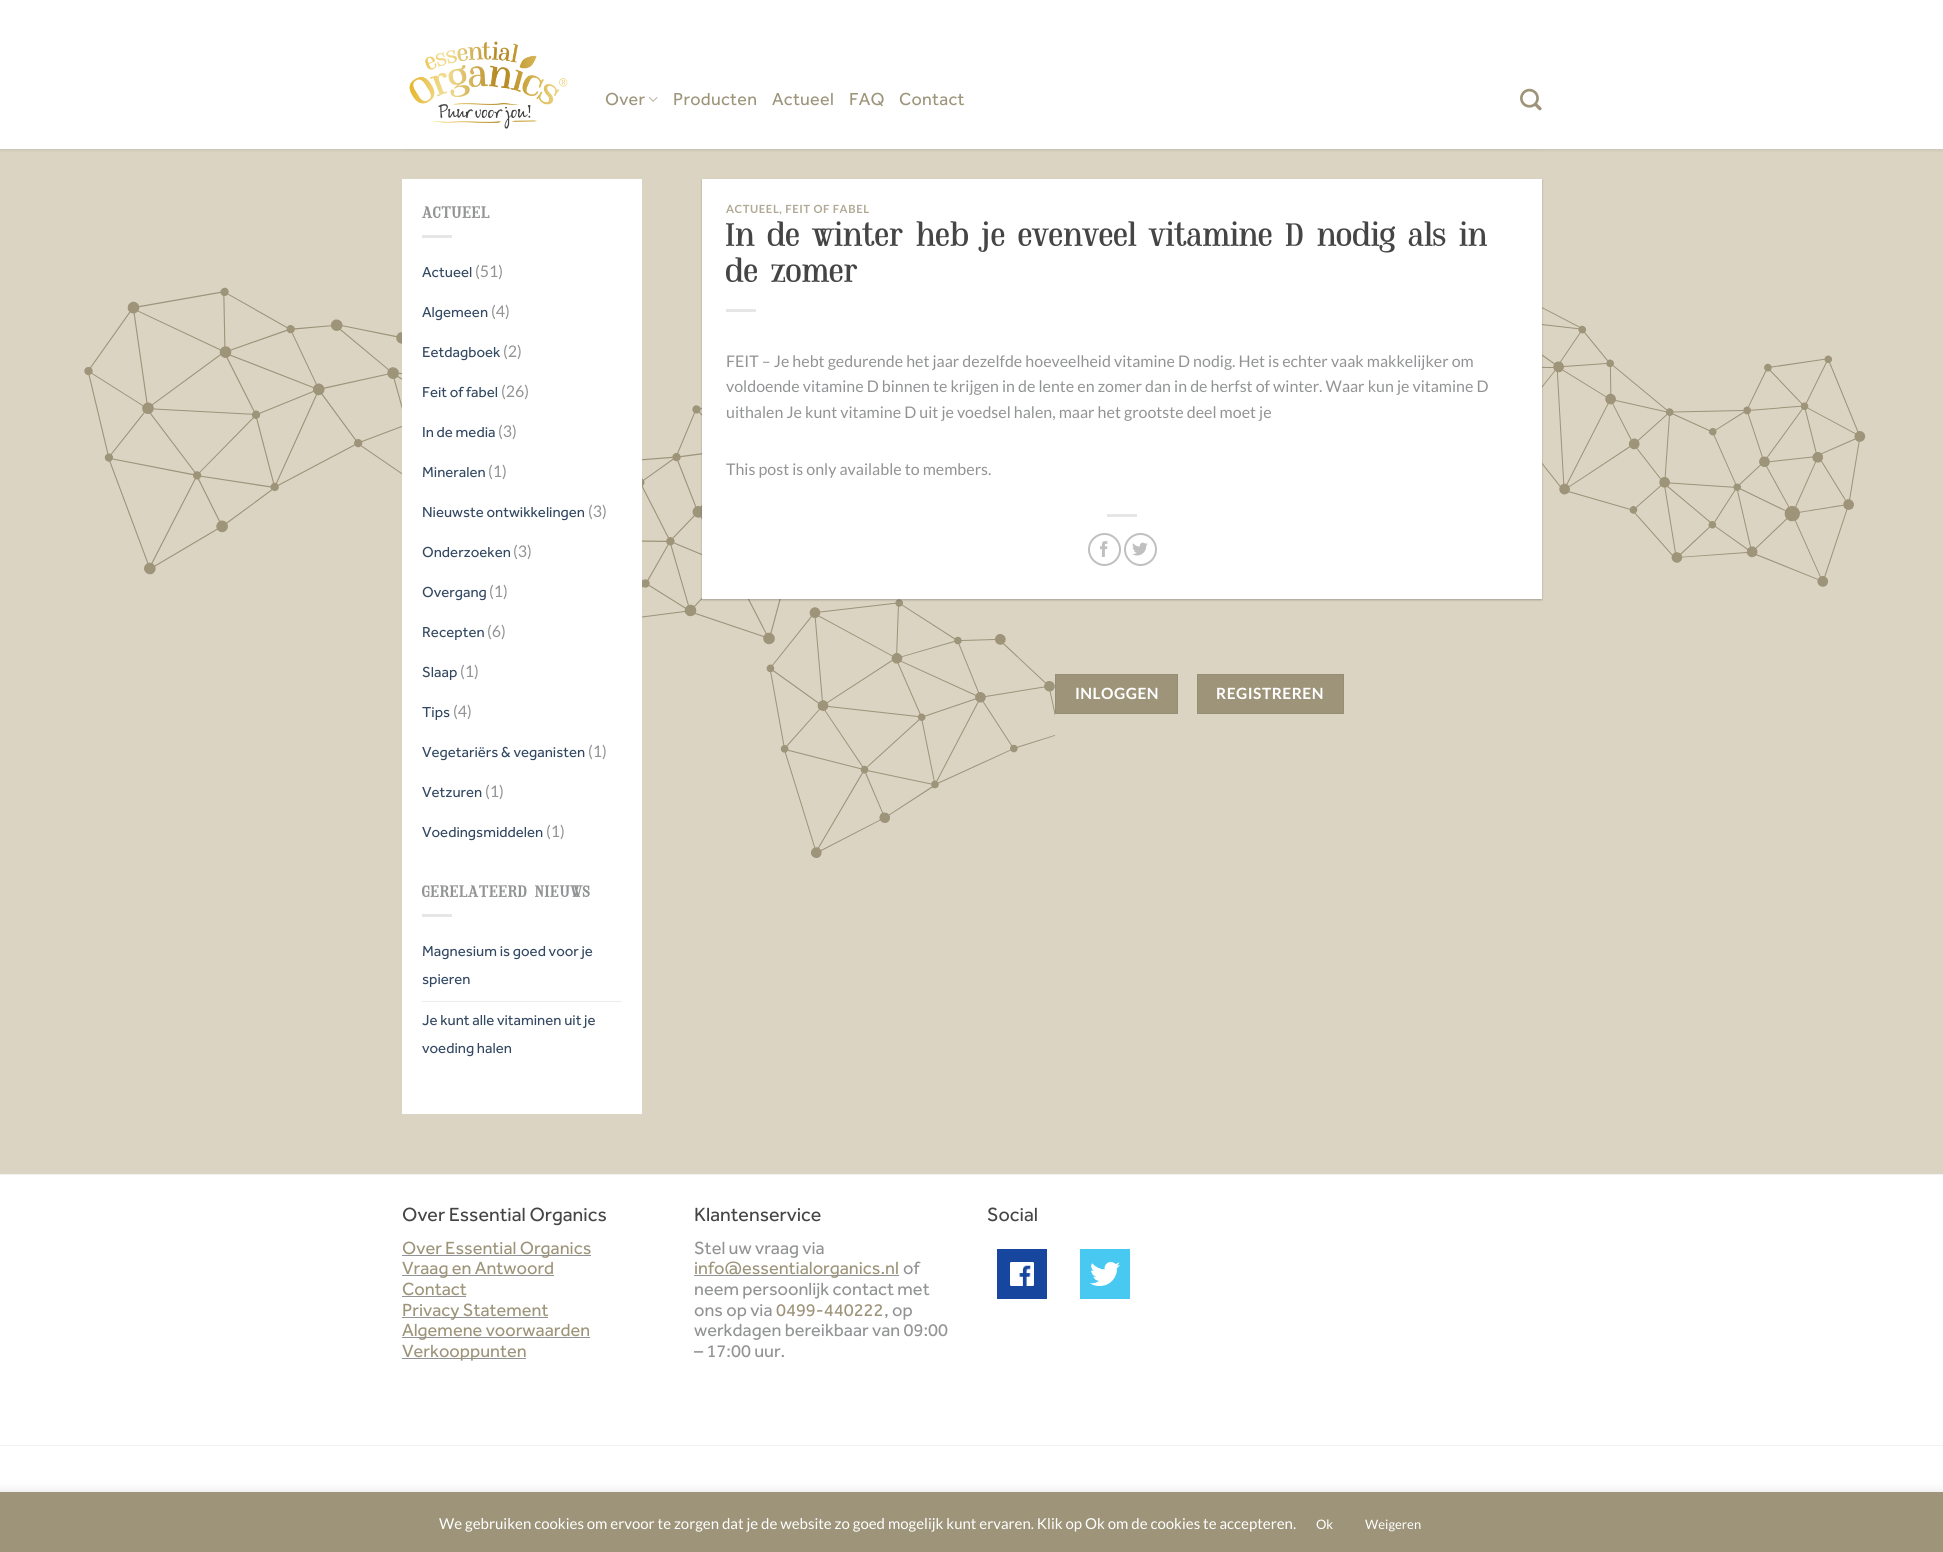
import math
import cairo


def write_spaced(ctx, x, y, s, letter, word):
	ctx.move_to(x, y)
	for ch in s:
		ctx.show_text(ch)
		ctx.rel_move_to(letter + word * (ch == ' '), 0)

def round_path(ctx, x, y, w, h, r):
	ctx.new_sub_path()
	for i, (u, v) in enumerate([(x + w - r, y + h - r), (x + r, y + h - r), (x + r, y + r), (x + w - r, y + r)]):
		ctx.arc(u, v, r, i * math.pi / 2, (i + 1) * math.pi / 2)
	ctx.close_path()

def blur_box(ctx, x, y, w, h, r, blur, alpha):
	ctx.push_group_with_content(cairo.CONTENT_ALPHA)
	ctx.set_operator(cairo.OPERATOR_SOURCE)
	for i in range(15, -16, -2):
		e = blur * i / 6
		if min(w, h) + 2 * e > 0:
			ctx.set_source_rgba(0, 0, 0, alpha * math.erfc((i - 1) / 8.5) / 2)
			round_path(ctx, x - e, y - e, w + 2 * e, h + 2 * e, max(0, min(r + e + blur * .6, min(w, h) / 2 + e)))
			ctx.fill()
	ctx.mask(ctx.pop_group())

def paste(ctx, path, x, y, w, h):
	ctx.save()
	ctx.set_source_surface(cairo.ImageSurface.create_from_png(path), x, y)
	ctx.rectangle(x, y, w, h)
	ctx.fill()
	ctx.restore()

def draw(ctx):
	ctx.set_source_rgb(1, 1, 1)
	ctx.paint()
	ctx.set_source_rgb(0.859, 0.831, 0.765)
	ctx.rectangle(0, 149, 1943, 1025)
	ctx.fill()
	ctx.save()
	ctx.rectangle(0, 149, 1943, 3)
	ctx.clip()
	ctx.set_source_rgb(0, 0, 0)
	blur_box(ctx, 0, 1, 1943, 149, 0, 2.5, 0.1)
	ctx.restore()
	paste(ctx, 'media/1.png', 409, 41, 159, 88)
	ctx.select_font_face('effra')
	ctx.set_font_size(18)
	ctx.set_source_rgb(0.616, 0.58, 0.478)
	write_spaced(ctx, 605, 105, 'Over', 0.25, 0)
	paste(ctx, 'media/2.png', 648, 96, 10, 6)
	for x, y, s in [
		(673, 105, 'Producten'),
		(772, 105, 'Actueel'),
		(849, 105, 'FAQ'),
		(899, 105, 'Contact'),
	]:
		write_spaced(ctx, x, y, s, 0.25, 0)
	paste(ctx, 'media/3.png', 1520, 88, 22, 23)
	ctx.set_source_rgb(0.784, 0.761, 0.706)
	ctx.rectangle(402, 149, 1140, 1)
	ctx.fill()
	paste(ctx, 'media/4.png', 84, 287, 1782, 571)
	ctx.set_source_rgb(1, 1, 1)
	ctx.rectangle(402, 179, 240, 935)
	ctx.fill()
	ctx.select_font_face('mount', cairo.FONT_SLANT_NORMAL, cairo.FONT_WEIGHT_BOLD)
	ctx.set_font_size(16)
	ctx.set_source_rgb(0.573, 0.576, 0.58)
	write_spaced(ctx, 422, 218, 'ACTUEEL', 0.75, 0)
	ctx.set_source_rgb(0.902, 0.902, 0.902)
	ctx.rectangle(422, 235, 30, 3)
	ctx.fill()
	ctx.select_font_face('effra')
	ctx.set_font_size(15)
	ctx.set_source_rgb(0.2, 0.282, 0.384)
	ctx.move_to(422, 277)
	ctx.show_text('Actueel')
	ctx.select_font_face('Lato')
	ctx.set_font_size(16)
	ctx.set_source_rgb(0.573, 0.576, 0.58)
	ctx.move_to(475, 277)
	ctx.show_text('(51)')
	ctx.select_font_face('effra')
	ctx.set_font_size(15)
	ctx.set_source_rgb(0.2, 0.282, 0.384)
	ctx.move_to(422, 317)
	ctx.show_text('Algemeen')
	ctx.select_font_face('Lato')
	ctx.set_font_size(16)
	ctx.set_source_rgb(0.573, 0.576, 0.58)
	ctx.move_to(491, 317)
	ctx.show_text('(4)')
	ctx.select_font_face('effra')
	ctx.set_font_size(15)
	ctx.set_source_rgb(0.2, 0.282, 0.384)
	ctx.move_to(422, 357)
	ctx.show_text('Eetdagboek')
	ctx.select_font_face('Lato')
	ctx.set_font_size(16)
	ctx.set_source_rgb(0.573, 0.576, 0.58)
	ctx.move_to(503, 357)
	ctx.show_text('(2)')
	ctx.select_font_face('effra')
	ctx.set_font_size(15)
	ctx.set_source_rgb(0.2, 0.282, 0.384)
	ctx.move_to(422, 397)
	ctx.show_text('Feit of fabel')
	ctx.select_font_face('Lato')
	ctx.set_font_size(16)
	ctx.set_source_rgb(0.573, 0.576, 0.58)
	ctx.move_to(501, 397)
	ctx.show_text('(26)')
	ctx.select_font_face('effra')
	ctx.set_font_size(15)
	ctx.set_source_rgb(0.2, 0.282, 0.384)
	ctx.move_to(422, 437)
	ctx.show_text('In de media')
	ctx.select_font_face('Lato')
	ctx.set_font_size(16)
	ctx.set_source_rgb(0.573, 0.576, 0.58)
	ctx.move_to(498, 437)
	ctx.show_text('(3)')
	ctx.select_font_face('effra')
	ctx.set_font_size(15)
	ctx.set_source_rgb(0.2, 0.282, 0.384)
	ctx.move_to(422, 477)
	ctx.show_text('Mineralen')
	ctx.select_font_face('Lato')
	ctx.set_font_size(16)
	ctx.set_source_rgb(0.573, 0.576, 0.58)
	ctx.move_to(488, 477)
	ctx.show_text('(1)')
	ctx.select_font_face('effra')
	ctx.set_font_size(15)
	ctx.set_source_rgb(0.2, 0.282, 0.384)
	ctx.move_to(422, 517)
	ctx.show_text('Nieuwste ontwikkelingen')
	ctx.select_font_face('Lato')
	ctx.set_font_size(16)
	ctx.set_source_rgb(0.573, 0.576, 0.58)
	ctx.move_to(588, 517)
	ctx.show_text('(3)')
	ctx.select_font_face('effra')
	ctx.set_font_size(15)
	ctx.set_source_rgb(0.2, 0.282, 0.384)
	ctx.move_to(422, 557)
	ctx.show_text('Onderzoeken')
	ctx.select_font_face('Lato')
	ctx.set_font_size(16)
	ctx.set_source_rgb(0.573, 0.576, 0.58)
	ctx.move_to(513, 557)
	ctx.show_text('(3)')
	ctx.select_font_face('effra')
	ctx.set_font_size(15)
	ctx.set_source_rgb(0.2, 0.282, 0.384)
	ctx.move_to(422, 597)
	ctx.show_text('Overgang')
	ctx.select_font_face('Lato')
	ctx.set_font_size(16)
	ctx.set_source_rgb(0.573, 0.576, 0.58)
	ctx.move_to(489, 597)
	ctx.show_text('(1)')
	ctx.select_font_face('effra')
	ctx.set_font_size(15)
	ctx.set_source_rgb(0.2, 0.282, 0.384)
	ctx.move_to(422, 637)
	ctx.show_text('Recepten')
	ctx.select_font_face('Lato')
	ctx.set_font_size(16)
	ctx.set_source_rgb(0.573, 0.576, 0.58)
	ctx.move_to(487, 637)
	ctx.show_text('(6)')
	ctx.select_font_face('effra')
	ctx.set_font_size(15)
	ctx.set_source_rgb(0.2, 0.282, 0.384)
	ctx.move_to(422, 677)
	ctx.show_text('Slaap')
	ctx.select_font_face('Lato')
	ctx.set_font_size(16)
	ctx.set_source_rgb(0.573, 0.576, 0.58)
	ctx.move_to(460, 677)
	ctx.show_text('(1)')
	ctx.select_font_face('effra')
	ctx.set_font_size(15)
	ctx.set_source_rgb(0.2, 0.282, 0.384)
	ctx.move_to(422, 717)
	ctx.show_text('Tips')
	ctx.select_font_face('Lato')
	ctx.set_font_size(16)
	ctx.set_source_rgb(0.573, 0.576, 0.58)
	ctx.move_to(453, 717)
	ctx.show_text('(4)')
	ctx.select_font_face('effra')
	ctx.set_font_size(15)
	ctx.set_source_rgb(0.2, 0.282, 0.384)
	ctx.move_to(422, 757)
	ctx.show_text('Vegetariërs & veganisten')
	ctx.select_font_face('Lato')
	ctx.set_font_size(16)
	ctx.set_source_rgb(0.573, 0.576, 0.58)
	ctx.move_to(588, 757)
	ctx.show_text('(1)')
	ctx.select_font_face('effra')
	ctx.set_font_size(15)
	ctx.set_source_rgb(0.2, 0.282, 0.384)
	ctx.move_to(422, 797)
	ctx.show_text('Vetzuren')
	ctx.select_font_face('Lato')
	ctx.set_font_size(16)
	ctx.set_source_rgb(0.573, 0.576, 0.58)
	ctx.move_to(485, 797)
	ctx.show_text('(1)')
	ctx.select_font_face('effra')
	ctx.set_font_size(15)
	ctx.set_source_rgb(0.2, 0.282, 0.384)
	ctx.move_to(422, 837)
	ctx.show_text('Voedingsmiddelen')
	ctx.select_font_face('Lato')
	ctx.set_font_size(16)
	ctx.set_source_rgb(0.573, 0.576, 0.58)
	ctx.move_to(546, 837)
	ctx.show_text('(1)')
	ctx.select_font_face('mount', cairo.FONT_SLANT_NORMAL, cairo.FONT_WEIGHT_BOLD)
	write_spaced(ctx, 422, 897, 'GERELATEERD NIEUWS', 0.75, 0)
	ctx.set_source_rgb(0.902, 0.902, 0.902)
	ctx.rectangle(422, 914, 30, 3)
	ctx.fill()
	ctx.select_font_face('effra')
	ctx.set_font_size(15)
	ctx.set_source_rgb(0.2, 0.282, 0.384)
	ctx.move_to(422, 956)
	ctx.show_text('Magnesium is goed voor je')
	ctx.move_to(422, 984)
	ctx.show_text('spieren')
	ctx.set_source_rgb(0.925, 0.925, 0.925)
	ctx.rectangle(422, 1001, 200, 1)
	ctx.fill()
	ctx.set_source_rgb(0.2, 0.282, 0.384)
	ctx.move_to(422, 1025)
	ctx.show_text('Je kunt alle vitaminen uit je')
	ctx.move_to(422, 1053)
	ctx.show_text('voeding halen')
	ctx.set_source_rgb(0, 0, 0)
	blur_box(ctx, 702, 180, 840, 420, 0, 1, 0.24)
	ctx.set_source_rgb(1, 1, 1)
	ctx.rectangle(702, 179, 840, 420)
	ctx.fill()
	ctx.select_font_face('Lato', cairo.FONT_SLANT_NORMAL, cairo.FONT_WEIGHT_BOLD)
	ctx.set_font_size(11.25)
	ctx.set_source_rgb(0.694, 0.663, 0.584)
	write_spaced(ctx, 726, 213, 'ACTUEEL, FEIT OF FABEL', 0.6, 0)
	ctx.select_font_face('mount')
	ctx.set_font_size(32.4)
	ctx.set_source_rgb(0.271, 0.271, 0.271)
	ctx.move_to(726, 246)
	ctx.show_text('In de winter heb je evenveel vitamine D nodig als in')
	ctx.move_to(726, 282)
	ctx.show_text('de zomer')
	ctx.set_source_rgb(0.902, 0.902, 0.902)
	ctx.rectangle(726, 309, 30, 3)
	ctx.fill()
	ctx.select_font_face('Lato')
	ctx.set_font_size(16)
	ctx.set_source_rgb(0.573, 0.576, 0.58)
	for x, y, s in [
		(726, 367, 'FEIT – Je hebt gedurende het jaar dezelfde hoeveelheid vitamine D nodig. Het is echter vaak makkelijker om'),
		(726, 392, 'voldoende vitamine D binnen te krijgen in de lente en zomer dan in de herfst of winter. Waar kun je vitamine D'),
		(726, 418, 'uithalen Je kunt vitamine D uit je voedsel halen, maar het grootste deel moet je'),
		(726, 475, 'This post is only available to members.'),
	]:
		ctx.move_to(x, y)
		ctx.show_text(s)
	ctx.set_source_rgb(0.902, 0.902, 0.902)
	ctx.rectangle(1107, 514, 30, 3)
	ctx.fill()
	ctx.arc(1104.5, 549.5, 15.5, 0, 2 * math.pi)
	ctx.set_source_rgb(0.753, 0.753, 0.753)
	ctx.stroke()
	paste(ctx, 'media/5.png', 1100, 541, 8, 16)
	ctx.arc(1140.5, 549.5, 15.5, 0, 2 * math.pi)
	ctx.stroke()
	paste(ctx, 'media/6.png', 1132, 542, 16, 14)
	ctx.set_source_rgb(0.859, 0.831, 0.765)
	ctx.rectangle(1055, 712, 9, 26)
	ctx.fill()
	ctx.set_source_rgb(0.616, 0.58, 0.478)
	ctx.rectangle(1055.5, 674.5, 122, 39)
	ctx.fill_preserve()
	ctx.set_source_rgb(0.584, 0.553, 0.455)
	ctx.set_line_width(1)
	ctx.stroke()
	ctx.select_font_face('Lato', cairo.FONT_SLANT_NORMAL, cairo.FONT_WEIGHT_BOLD)
	ctx.set_font_size(15.5)
	ctx.set_source_rgb(1, 1, 1)
	write_spaced(ctx, 1075, 699, 'INLOGGEN', 0.5, 0)
	ctx.set_source_rgb(0.616, 0.58, 0.478)
	ctx.rectangle(1197.5, 674.5, 146, 39)
	ctx.fill_preserve()
	ctx.set_source_rgb(0.584, 0.553, 0.455)
	ctx.stroke()
	ctx.set_source_rgb(1, 1, 1)
	write_spaced(ctx, 1216, 699, 'REGISTREREN', 0.5, 0)
	ctx.set_source_rgb(0.949, 0.949, 0.949)
	ctx.rectangle(0, 1174, 1943, 1)
	ctx.fill()
	ctx.select_font_face('effra')
	ctx.set_font_size(19.75)
	ctx.set_source_rgb(0.271, 0.271, 0.271)
	ctx.move_to(402, 1221)
	ctx.show_text('Over Essential Organics')
	ctx.set_source_rgb(0.573, 0.576, 0.58)
	ctx.rectangle(402, 1255, 189, 1)
	ctx.fill()
	ctx.set_font_size(18.25)
	ctx.set_source_rgb(0.616, 0.58, 0.478)
	ctx.move_to(402, 1254)
	ctx.show_text('Over Essential Organics')
	ctx.set_source_rgb(0.573, 0.576, 0.58)
	ctx.rectangle(402, 1275, 152, 1)
	ctx.fill()
	ctx.set_source_rgb(0.616, 0.58, 0.478)
	ctx.move_to(402, 1274)
	ctx.show_text('Vraag en Antwoord')
	ctx.move_to(402, 1295)
	ctx.show_text('Contact')
	ctx.set_source_rgb(0.573, 0.576, 0.58)
	ctx.rectangle(402, 1296, 64, 1)
	ctx.fill()
	ctx.rectangle(402, 1317, 146, 1)
	ctx.fill()
	ctx.set_source_rgb(0.616, 0.58, 0.478)
	ctx.move_to(402, 1316)
	ctx.show_text('Privacy Statement')
	ctx.set_source_rgb(0.573, 0.576, 0.58)
	ctx.rectangle(402, 1337, 188, 1)
	ctx.fill()
	ctx.set_source_rgb(0.616, 0.58, 0.478)
	ctx.move_to(402, 1336)
	ctx.show_text('Algemene voorwaarden')
	ctx.set_source_rgb(0.573, 0.576, 0.58)
	ctx.rectangle(402, 1358, 124, 1)
	ctx.fill()
	ctx.set_source_rgb(0.616, 0.58, 0.478)
	ctx.move_to(402, 1357)
	ctx.show_text('Verkooppunten')
	ctx.set_font_size(19.75)
	ctx.set_source_rgb(0.271, 0.271, 0.271)
	ctx.move_to(694, 1221)
	ctx.show_text('Klantenservice')
	ctx.set_font_size(18.25)
	ctx.set_source_rgb(0.573, 0.576, 0.58)
	ctx.move_to(694, 1254)
	ctx.show_text('Stel uw vraag via')
	ctx.rectangle(694, 1275, 205, 1)
	ctx.fill()
	ctx.set_source_rgb(0.616, 0.58, 0.478)
	ctx.move_to(694, 1274)
	ctx.show_text('info@essentialorganics.nl')
	ctx.set_source_rgb(0.573, 0.576, 0.58)
	for x, y, s in [
		(903, 1274, 'of'),
		(694, 1295, 'neem persoonlijk contact met'),
		(694, 1316, 'ons op via'),
	]:
		ctx.move_to(x, y)
		ctx.show_text(s)
	ctx.set_source_rgb(0.616, 0.58, 0.478)
	ctx.move_to(776, 1316)
	ctx.show_text('0499-440222')
	ctx.set_source_rgb(0.573, 0.576, 0.58)
	for x, y, s in [
		(884, 1316, ', op'),
		(694, 1336, 'werkdagen bereikbaar van 09:00'),
		(694, 1357, '– 17:00 uur.'),
	]:
		ctx.move_to(x, y)
		ctx.show_text(s)
	ctx.set_font_size(19.75)
	ctx.set_source_rgb(0.271, 0.271, 0.271)
	ctx.move_to(987, 1221)
	ctx.show_text('Social')
	ctx.set_source_rgb(0.09, 0.275, 0.62)
	ctx.rectangle(997, 1249, 50, 50)
	ctx.fill()
	paste(ctx, 'media/7.png', 1010, 1262, 24, 24)
	ctx.set_source_rgb(0.282, 0.788, 0.949)
	ctx.rectangle(1080, 1249, 50, 50)
	ctx.fill()
	paste(ctx, 'media/8.png', 1090, 1262, 30, 24)
	ctx.set_source_rgb(0.949, 0.949, 0.949)
	ctx.rectangle(0, 1445, 1943, 1)
	ctx.fill()
	ctx.set_source_rgb(0.675, 0.671, 0.671)
	blur_box(ctx, 0, 1491, 1943, 60, 0, 5, 0.3)
	ctx.set_source_rgb(0.616, 0.58, 0.478)
	ctx.rectangle(0, 1492, 1943, 60)
	ctx.fill()
	ctx.select_font_face('Lato')
	ctx.set_font_size(15)
	ctx.set_source_rgb(1, 1, 1)
	ctx.move_to(439, 1529)
	ctx.show_text('We gebruiken cookies om ervoor te zorgen dat je de website zo goed mogelijk kunt ervaren. Klik op Ok om de cookies te accepteren.')
	ctx.set_font_size(13)
	ctx.move_to(1316, 1529)
	ctx.show_text('Ok')
	ctx.move_to(1365, 1529)
	ctx.show_text('Weigeren')


surface = cairo.ImageSurface(cairo.FORMAT_RGB24, 1943, 1552)
ctx = cairo.Context(surface)
options = cairo.FontOptions()
options.set_hint_metrics(cairo.HINT_METRICS_OFF)
options.set_hint_style(cairo.HINT_STYLE_NONE)
ctx.set_font_options(options)
ctx.set_miter_limit(4)
draw(ctx)
surface.write_to_png('image.png')
